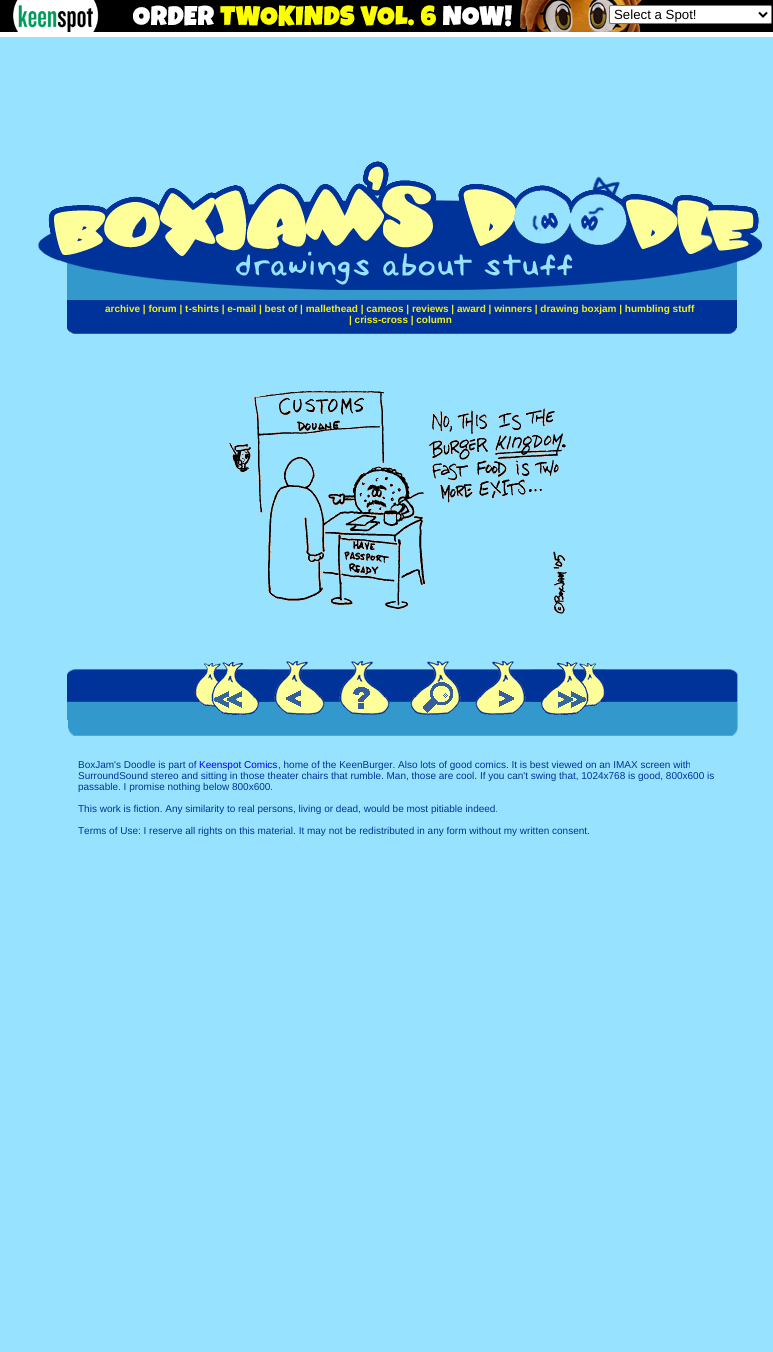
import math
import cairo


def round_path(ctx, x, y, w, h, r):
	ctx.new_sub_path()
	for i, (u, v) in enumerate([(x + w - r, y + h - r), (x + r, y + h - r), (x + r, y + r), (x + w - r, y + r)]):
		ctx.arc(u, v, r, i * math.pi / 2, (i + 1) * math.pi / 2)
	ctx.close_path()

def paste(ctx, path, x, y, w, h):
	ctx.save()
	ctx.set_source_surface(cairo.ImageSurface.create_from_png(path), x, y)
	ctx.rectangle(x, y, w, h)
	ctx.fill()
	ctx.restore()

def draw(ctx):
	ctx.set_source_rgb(0.592, 0.886, 1)
	ctx.paint()
	ctx.set_source_rgb(0, 0, 0)
	ctx.rectangle(0, 0, 773, 32)
	ctx.fill()
	ctx.set_source_rgb(1, 1, 1)
	ctx.rectangle(0, 32, 773, 5)
	ctx.fill()
	paste(ctx, 'media/1.png', 13, 0, 86, 32)
	paste(ctx, 'media/2.png', 133, 0, 509, 32)
	round_path(ctx, 609.5, 5.5, 162, 18, 1.5)
	ctx.fill_preserve()
	ctx.set_source_rgb(0.463, 0.463, 0.463)
	ctx.set_line_width(1)
	ctx.stroke()
	ctx.new_path()
	ctx.move_to(759, 12.5)
	ctx.line_to(763, 16.5)
	ctx.line_to(767, 12.5)
	ctx.set_source_rgb(0, 0, 0)
	ctx.set_line_width(2)
	ctx.stroke()
	ctx.select_font_face('Liberation Sans')
	ctx.set_font_size(13.25)
	ctx.move_to(614, 19)
	ctx.show_text('Select a Spot!')
	paste(ctx, 'media/3.png', 37, 161, 726, 139)
	ctx.set_source_rgb(0, 0.2, 0.6)
	ctx.rectangle(67, 300, 670, 28)
	ctx.fill()
	ctx.select_font_face('Liberation Sans', cairo.FONT_SLANT_NORMAL, cairo.FONT_WEIGHT_BOLD)
	ctx.set_font_size(10)
	ctx.set_source_rgb(0.933, 0.933, 0.133)
	ctx.move_to(105, 312)
	ctx.show_text('archive | forum | t-shirts | e-mail | best of | mallethead | cameos | reviews | award | winners | drawing boxjam | humbling stuff')
	ctx.move_to(349, 323)
	ctx.show_text('| criss-cross | column')
	paste(ctx, 'media/4.png', 67, 328, 670, 6)
	paste(ctx, 'media/5.png', 229, 391, 338, 223)
	paste(ctx, 'media/6.png', 67, 669, 671, 51)
	paste(ctx, 'media/7.png', 194, 662, 74, 53)
	paste(ctx, 'media/8.png', 274, 661, 51, 54)
	paste(ctx, 'media/9.png', 339, 661, 51, 54)
	paste(ctx, 'media/10.png', 410, 661, 51, 54)
	paste(ctx, 'media/11.png', 475, 661, 51, 54)
	paste(ctx, 'media/12.png', 532, 662, 74, 53)
	paste(ctx, 'media/13.png', 68, 720, 670, 16)
	ctx.select_font_face('Liberation Sans')
	ctx.set_source_rgb(0, 0.2, 0.6)
	ctx.move_to(78, 768)
	ctx.show_text('BoxJam\'s Doodle is part of')
	ctx.set_source_rgb(0, 0, 1)
	ctx.move_to(199, 768)
	ctx.show_text('Keenspot Comics')
	ctx.set_source_rgb(0, 0.2, 0.6)
	for x, y, s in [
		(278, 768, ', home of the KeenBurger. Also lots of good comics. It is best viewed on an IMAX screen with'),
		(78, 779, 'SurroundSound stereo and sitting in those theater chairs that rumble. Man, those are cool. If you can\'t swing that, 1024x768 is good, 800x600 is'),
		(78, 790, 'passable. I promise nothing below 800x600.'),
		(78, 812, 'This work is fiction. Any similarity to real persons, living or dead, would be most pitiable indeed.'),
		(78, 834, 'Terms of Use: I reserve all rights on this material. It may not be redistributed in any form without my written consent.'),
	]:
		ctx.move_to(x, y)
		ctx.show_text(s)


surface = cairo.ImageSurface(cairo.FORMAT_RGB24, 773, 1352)
ctx = cairo.Context(surface)
options = cairo.FontOptions()
options.set_hint_metrics(cairo.HINT_METRICS_OFF)
options.set_hint_style(cairo.HINT_STYLE_NONE)
ctx.set_font_options(options)
ctx.set_miter_limit(4)
draw(ctx)
surface.write_to_png('image.png')
